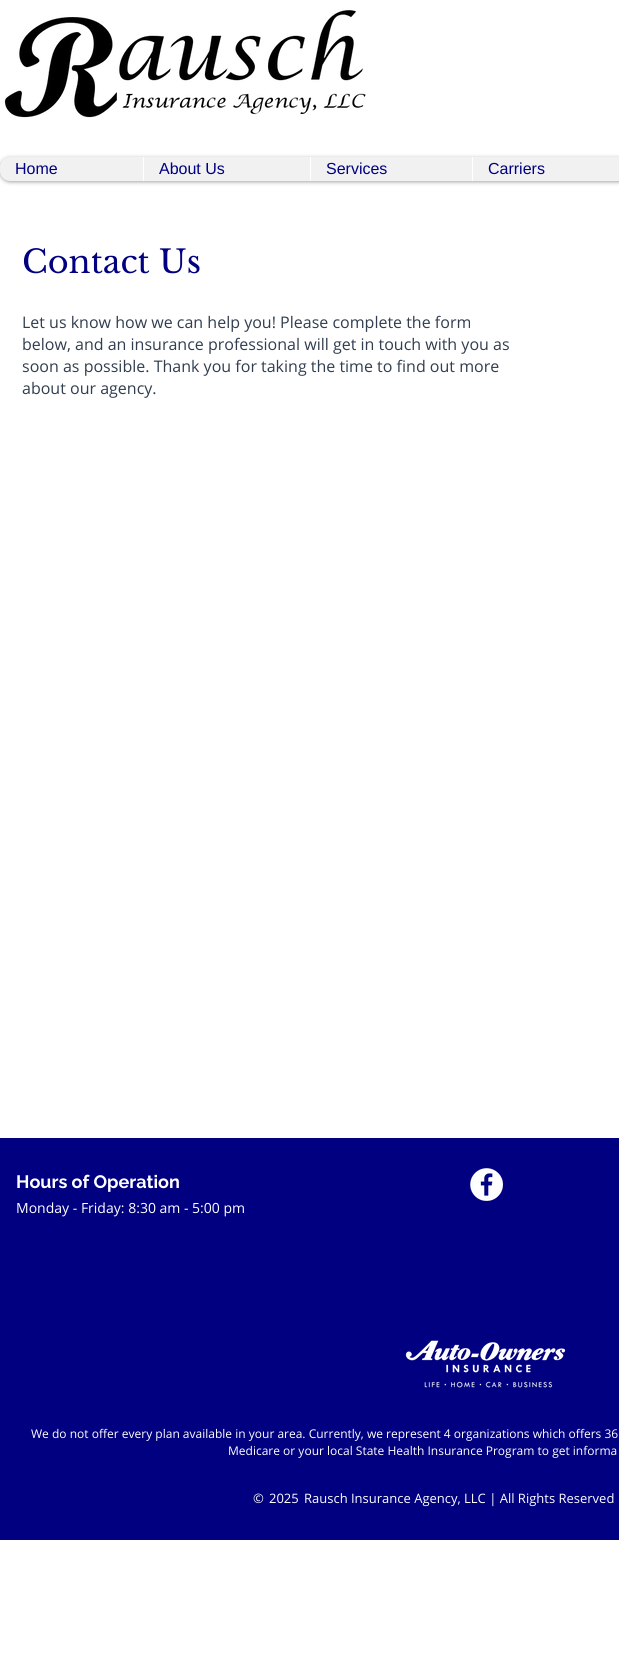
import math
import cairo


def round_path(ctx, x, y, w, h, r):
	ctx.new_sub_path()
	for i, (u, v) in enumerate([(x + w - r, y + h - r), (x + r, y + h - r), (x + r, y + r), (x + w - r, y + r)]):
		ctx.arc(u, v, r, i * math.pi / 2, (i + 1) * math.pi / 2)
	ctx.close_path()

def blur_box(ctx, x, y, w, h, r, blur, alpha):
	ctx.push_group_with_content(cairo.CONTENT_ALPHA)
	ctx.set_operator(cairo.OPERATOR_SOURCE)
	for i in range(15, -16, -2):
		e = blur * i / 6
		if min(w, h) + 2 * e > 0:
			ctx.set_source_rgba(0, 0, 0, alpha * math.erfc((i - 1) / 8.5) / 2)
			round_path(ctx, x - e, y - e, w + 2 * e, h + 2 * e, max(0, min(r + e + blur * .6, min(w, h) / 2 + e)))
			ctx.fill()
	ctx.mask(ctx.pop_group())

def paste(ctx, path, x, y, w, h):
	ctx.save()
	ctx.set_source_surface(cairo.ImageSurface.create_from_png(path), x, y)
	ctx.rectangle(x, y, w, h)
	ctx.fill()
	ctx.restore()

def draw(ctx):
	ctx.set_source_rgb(1, 1, 1)
	ctx.paint()
	paste(ctx, 'media/1.png', 4, 10, 362, 108)
	ctx.set_source_rgb(0, 0, 0)
	blur_box(ctx, 0, 158, 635, 24, 10, 2, 0.37)
	ctx.set_source_rgb(0.945, 0.945, 0.945)
	round_path(ctx, 0, 157, 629, 24, 10)
	ctx.fill()
	ctx.select_font_face('Liberation Sans')
	ctx.set_font_size(16)
	ctx.set_source_rgb(0, 0, 0.502)
	ctx.move_to(15, 174)
	ctx.show_text('Home')
	ctx.set_source_rgb(1, 1, 1)
	ctx.rectangle(143, 157, 1, 24)
	ctx.fill()
	ctx.set_source_rgb(0, 0, 0.502)
	ctx.move_to(159, 174)
	ctx.show_text('About Us')
	ctx.set_source_rgb(1, 1, 1)
	ctx.rectangle(310, 157, 1, 24)
	ctx.fill()
	ctx.set_source_rgb(0, 0, 0.502)
	ctx.move_to(326, 174)
	ctx.show_text('Services')
	ctx.set_source_rgb(1, 1, 1)
	ctx.rectangle(472, 157, 1, 24)
	ctx.fill()
	ctx.set_source_rgb(0, 0, 0.502)
	ctx.move_to(488, 174)
	ctx.show_text('Carriers')
	ctx.select_font_face('Libre Baskerville')
	ctx.set_font_size(32)
	ctx.move_to(22, 273)
	ctx.show_text('Contact Us')
	ctx.select_font_face('Open Sans')
	ctx.set_font_size(16)
	ctx.set_source_rgb(0.192, 0.243, 0.31)
	for x, y, s in [
		(22, 328, 'Let us know how we can help you! Please complete the form'),
		(22, 350, 'below, and an insurance professional will get in touch with you as'),
		(22, 372, 'soon as possible. Thank you for taking the time to find out more'),
		(22, 394, 'about our agency.'),
	]:
		ctx.move_to(x, y)
		ctx.show_text(s)
	ctx.set_source_rgb(0, 0, 0.502)
	ctx.rectangle(0, 1138, 619, 402)
	ctx.fill()
	ctx.select_font_face('Raleway', cairo.FONT_SLANT_NORMAL, cairo.FONT_WEIGHT_BOLD)
	ctx.set_font_size(18)
	ctx.set_source_rgb(1, 1, 1)
	ctx.move_to(16, 1188)
	ctx.show_text('Hours of Operation')
	ctx.select_font_face('Open Sans')
	ctx.set_font_size(14)
	ctx.move_to(16, 1213)
	ctx.show_text('Monday - Friday: 8:30 am - 5:00 pm')
	paste(ctx, 'media/2.png', 470, 1168, 33, 33)
	paste(ctx, 'media/3.png', 405, 1340, 161, 48)
	ctx.set_font_size(12)
	ctx.move_to(31, 1438)
	ctx.show_text('We do not offer every plan available in your area. Currently, we represent 4 organizations which offers 36')
	ctx.move_to(228, 1455)
	ctx.show_text('Medicare or your local State Health Insurance Program to get informa')
	ctx.set_font_size(13)
	for x, y, s in [
		(253, 1503, '©'),
		(269, 1503, '2025'),
		(304, 1503, 'Rausch Insurance Agency, LLC | All Rights Reserved'),
	]:
		ctx.move_to(x, y)
		ctx.show_text(s)


surface = cairo.ImageSurface(cairo.FORMAT_RGB24, 619, 1664)
ctx = cairo.Context(surface)
options = cairo.FontOptions()
options.set_hint_metrics(cairo.HINT_METRICS_OFF)
options.set_hint_style(cairo.HINT_STYLE_NONE)
ctx.set_font_options(options)
ctx.set_miter_limit(4)
draw(ctx)
surface.write_to_png('image.png')
